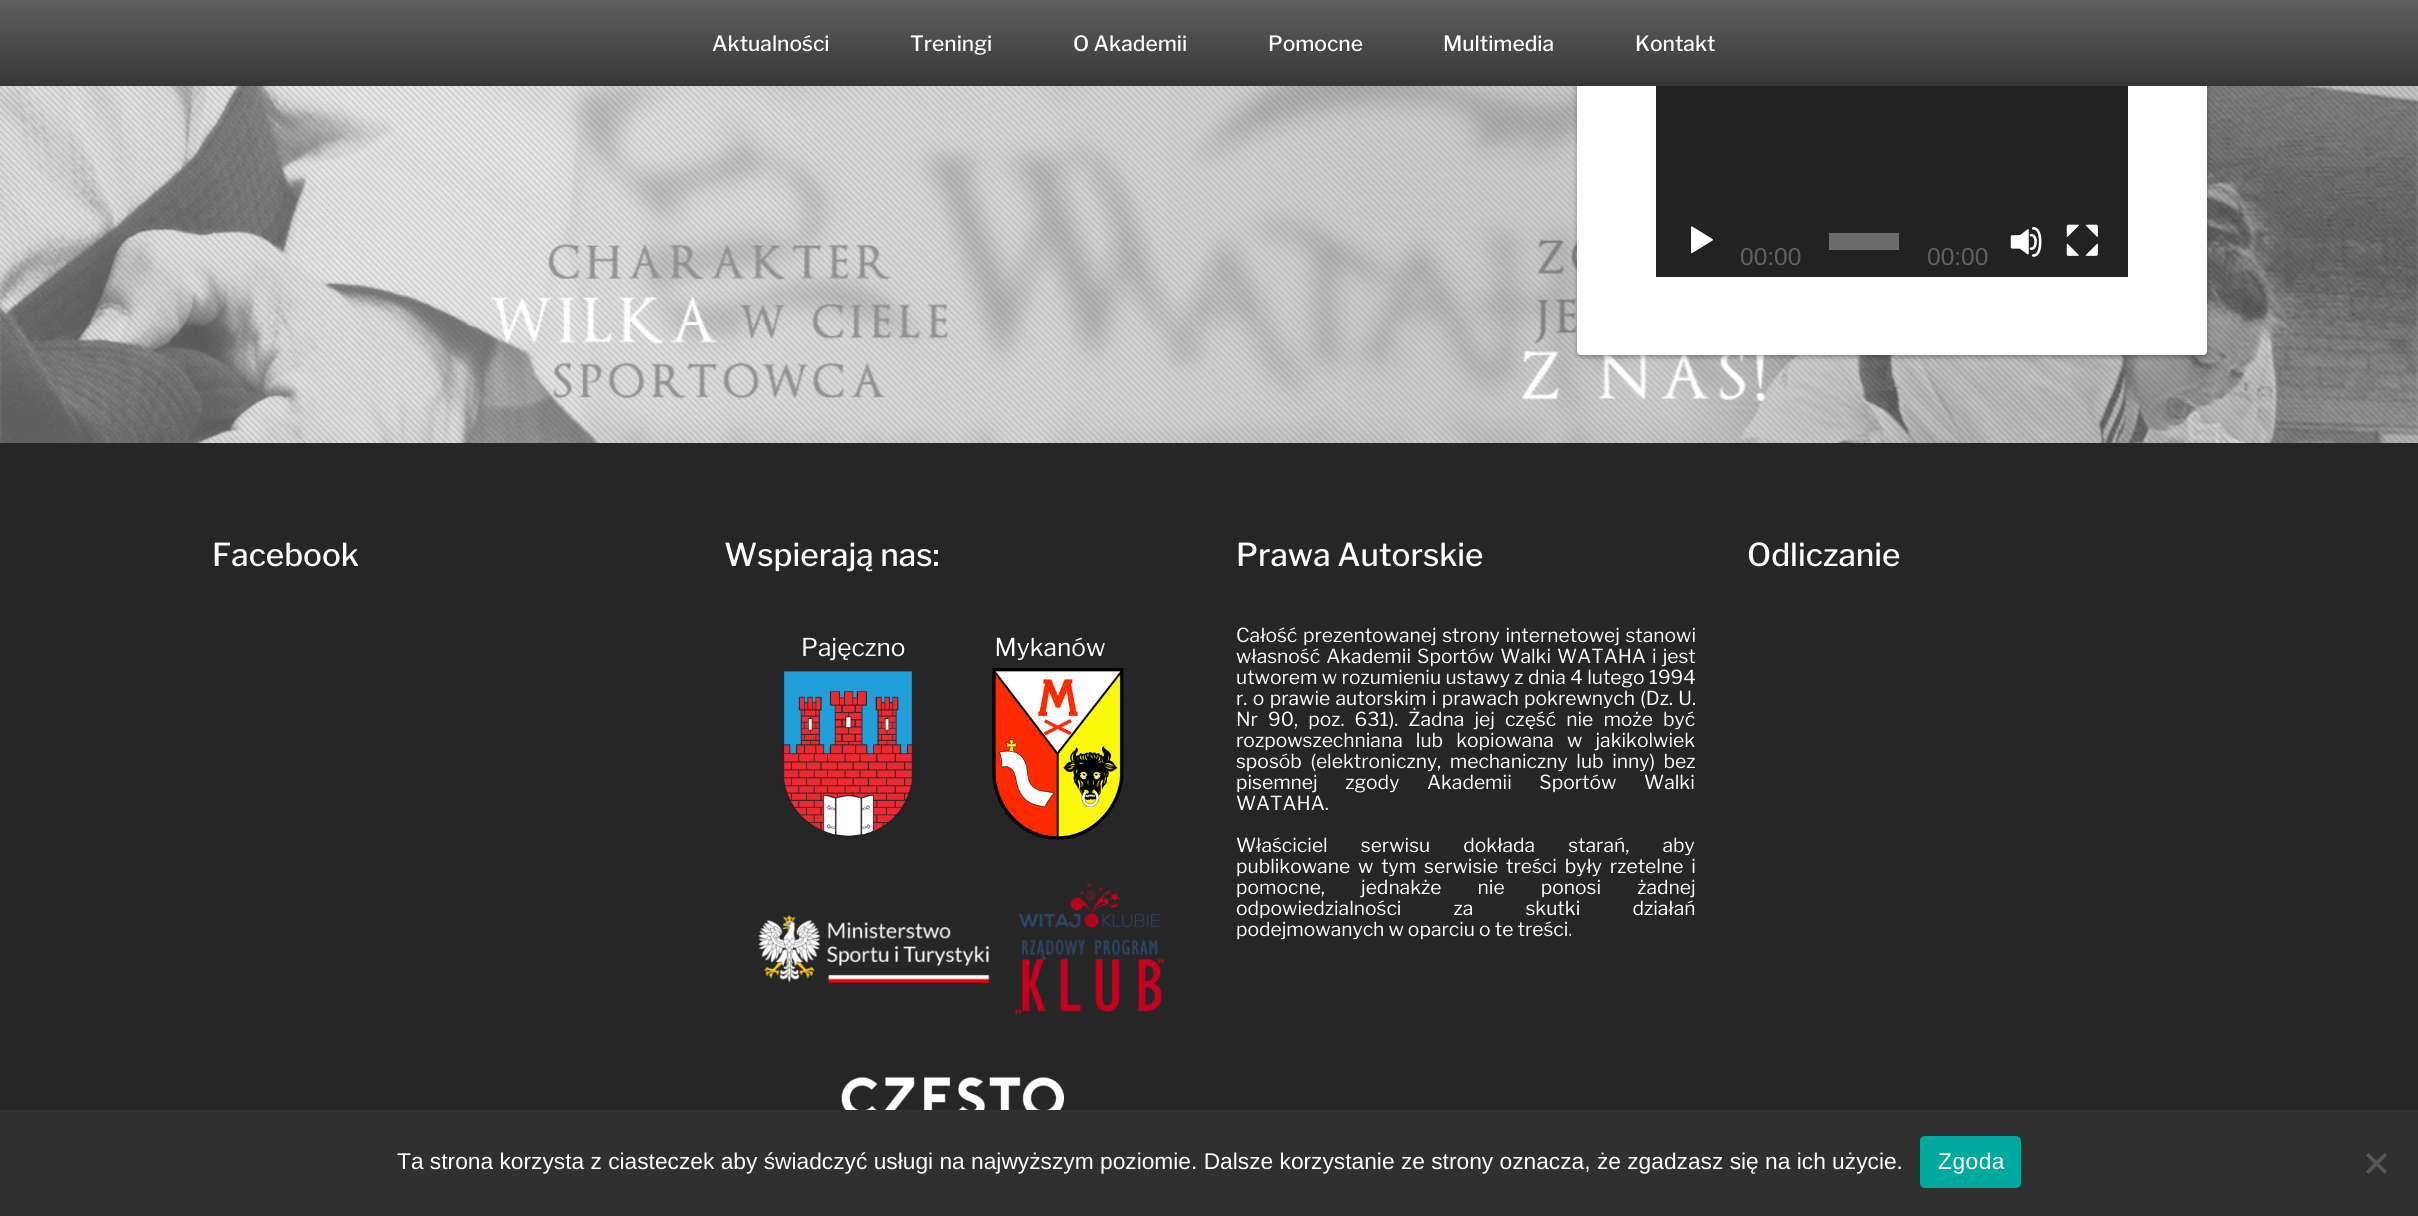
import math
import cairo


def write_spaced(ctx, x, y, s, letter, word):
	ctx.move_to(x, y)
	for ch in s:
		ctx.show_text(ch)
		ctx.rel_move_to(letter + word * (ch == ' '), 0)

def round_path(ctx, x, y, w, h, r):
	ctx.new_sub_path()
	for i, (u, v) in enumerate([(x + w - r, y + h - r), (x + r, y + h - r), (x + r, y + r), (x + w - r, y + r)]):
		ctx.arc(u, v, r, i * math.pi / 2, (i + 1) * math.pi / 2)
	ctx.close_path()

def blur_box(ctx, x, y, w, h, r, blur, alpha):
	ctx.push_group_with_content(cairo.CONTENT_ALPHA)
	ctx.set_operator(cairo.OPERATOR_SOURCE)
	for i in range(15, -16, -2):
		e = blur * i / 6
		if min(w, h) + 2 * e > 0:
			ctx.set_source_rgba(0, 0, 0, alpha * math.erfc((i - 1) / 8.5) / 2)
			round_path(ctx, x - e, y - e, w + 2 * e, h + 2 * e, max(0, min(r + e + blur * .6, min(w, h) / 2 + e)))
			ctx.fill()
	ctx.mask(ctx.pop_group())

def paste(ctx, path, x, y, w, h):
	ctx.save()
	ctx.set_source_surface(cairo.ImageSurface.create_from_png(path), x, y)
	ctx.rectangle(x, y, w, h)
	ctx.fill()
	ctx.restore()

def draw(ctx):
	ctx.set_source_rgb(1, 1, 1)
	ctx.paint()
	paste(ctx, 'media/1.png', 0, 86, 2418, 357)
	ctx.set_source_rgb(0.133, 0.098, 0.098)
	blur_box(ctx, 1577, -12, 630, 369, 4, 2.5, 0.4)
	ctx.set_source_rgb(1, 1, 1)
	round_path(ctx, 1577, -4, 630, 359, 4)
	ctx.fill()
	gradient = cairo.LinearGradient(1209, 0, 1209, 86)
	gradient.add_color_stop_rgba(0, 0.373, 0.373, 0.373, 1)
	gradient.add_color_stop_rgba(1, 0.212, 0.212, 0.212, 1)
	ctx.set_source(gradient)
	ctx.rectangle(0, 0, 2418, 86)
	ctx.fill()
	ctx.select_font_face('Libre Franklin Medium')
	ctx.set_font_size(21)
	ctx.set_source_rgb(1, 1, 1)
	for x, y, s in [
		(712, 51, 'Aktualności'),
		(910, 51, 'Treningi'),
		(1073, 51, 'O Akademii'),
		(1268, 51, 'Pomocne'),
		(1443, 51, 'Multimedia'),
		(1635, 51, 'Kontakt'),
	]:
		ctx.move_to(x, y)
		ctx.show_text(s)
	ctx.set_source_rgb(0.133, 0.133, 0.133)
	ctx.rectangle(1656, 86, 472, 191)
	ctx.fill()
	paste(ctx, 'media/2.png', 1691, 226, 22, 28)
	ctx.set_source_rgb(0.42, 0.42, 0.42)
	ctx.rectangle(1829, 233, 70, 17)
	ctx.fill()
	paste(ctx, 'media/3.png', 2010, 227, 32, 30)
	paste(ctx, 'media/4.png', 2066, 224, 32, 32)
	ctx.select_font_face('Liberation Sans')
	ctx.set_font_size(24.5)
	ctx.set_source_rgb(0.38, 0.38, 0.38)
	ctx.move_to(1740, 265)
	ctx.show_text('00:00')
	ctx.move_to(1927, 265)
	ctx.show_text('00:00')
	ctx.set_source_rgb(0.149, 0.149, 0.149)
	ctx.rectangle(0, 443, 2418, 667)
	ctx.fill()
	ctx.select_font_face('Libre Franklin Medium')
	ctx.set_font_size(31.5)
	ctx.set_source_rgb(1, 1, 1)
	ctx.move_to(212, 566)
	ctx.show_text('Facebook')
	ctx.move_to(724, 566)
	ctx.show_text('Wspierają nas:')
	ctx.select_font_face('Libre Franklin')
	ctx.set_font_size(24.5)
	ctx.move_to(801, 656)
	ctx.show_text('Pajęczno                 Mykanów')
	paste(ctx, 'media/5.png', 783, 671, 130, 167)
	paste(ctx, 'media/6.png', 992, 668, 132, 172)
	paste(ctx, 'media/7.png', 758, 914, 232, 70)
	paste(ctx, 'media/8.png', 1015, 883, 149, 132)
	paste(ctx, 'media/9.png', 841, 1077, 223, 33)
	ctx.select_font_face('Libre Franklin Medium')
	ctx.set_font_size(31.5)
	ctx.move_to(1236, 566)
	ctx.show_text('Prawa Autorskie')
	ctx.select_font_face('Libre Franklin')
	ctx.set_font_size(19.25)
	write_spaced(ctx, 1236, 642, 'Całość prezentowanej strony internetowej stanowi', 0, 1.5)
	write_spaced(ctx, 1236, 663, 'własność Akademii Sportów Walki WATAHA i jest', 0, 2)
	write_spaced(ctx, 1236, 684, 'utworem w rozumieniu ustawy z dnia 4 lutego 1994', 0, 0.25)
	write_spaced(ctx, 1236, 705, 'r. o prawie autorskim i prawach pokrewnych (Dz. U.', 0, 1.25)
	write_spaced(ctx, 1236, 726, 'Nr 90, poz. 631). Żadna jej część nie może być', 0, 6)
	write_spaced(ctx, 1236, 747, 'rozpowszechniana lub kopiowana w jakikolwiek', 0, 9)
	write_spaced(ctx, 1236, 768, 'sposób (elektroniczny, mechaniczny lub inny) bez', 0, 4.5)
	write_spaced(ctx, 1236, 789, 'pisemnej zgody Akademii Sportów Walki', 0, 23.5)
	ctx.move_to(1236, 810)
	ctx.show_text('WATAHA.')
	write_spaced(ctx, 1236, 852, 'Właściciel serwisu dokłada starań, aby', 0, 29)
	write_spaced(ctx, 1236, 873, 'publikowane w tym serwisie treści były rzetelne i', 0, 3.75)
	write_spaced(ctx, 1236, 894, 'pomocne, jednakże nie ponosi żadnej', 0, 32)
	write_spaced(ctx, 1236, 915, 'odpowiedzialności za skutki działań', 0, 48)
	ctx.move_to(1236, 936)
	ctx.show_text('podejmowanych w oparciu o te treści.')
	ctx.select_font_face('Libre Franklin Medium')
	ctx.set_font_size(31.5)
	ctx.move_to(1747, 566)
	ctx.show_text('Odliczanie')
	ctx.set_source_rgb(0.188, 0.188, 0.188)
	ctx.rectangle(0, 1110, 2418, 106)
	ctx.fill()
	ctx.select_font_face('Liberation Sans')
	ctx.set_font_size(22.75)
	ctx.set_source_rgb(1, 1, 1)
	ctx.move_to(397, 1169)
	ctx.show_text('Ta strona korzysta z ciasteczek aby świadczyć usługi na najwyższym poziomie. Dalsze korzystanie ze strony oznacza, że zgadzasz się na ich użycie.')
	ctx.set_source_rgb(0, 0.663, 0.616)
	round_path(ctx, 1920, 1136, 101, 52, 5)
	ctx.fill()
	ctx.set_source_rgb(1, 1, 1)
	write_spaced(ctx, 1938, 1169, 'Zgoda', 0.5, 0)
	ctx.set_source_rgb(0.345, 0.345, 0.345)
	ctx.new_path()
	ctx.move_to(2384.5, 1153)
	ctx.line_to(2387, 1155.5)
	ctx.line_to(2368.5, 1174)
	ctx.line_to(2366, 1171.5)
	ctx.close_path()
	ctx.fill()
	ctx.new_path()
	ctx.move_to(2366, 1155.5)
	ctx.line_to(2368.5, 1153)
	ctx.line_to(2387, 1171.5)
	ctx.line_to(2384.5, 1174)
	ctx.close_path()
	ctx.fill()


surface = cairo.ImageSurface(cairo.FORMAT_RGB24, 2418, 1216)
ctx = cairo.Context(surface)
options = cairo.FontOptions()
options.set_hint_metrics(cairo.HINT_METRICS_OFF)
options.set_hint_style(cairo.HINT_STYLE_NONE)
ctx.set_font_options(options)
ctx.set_miter_limit(4)
draw(ctx)
surface.write_to_png('image.png')
